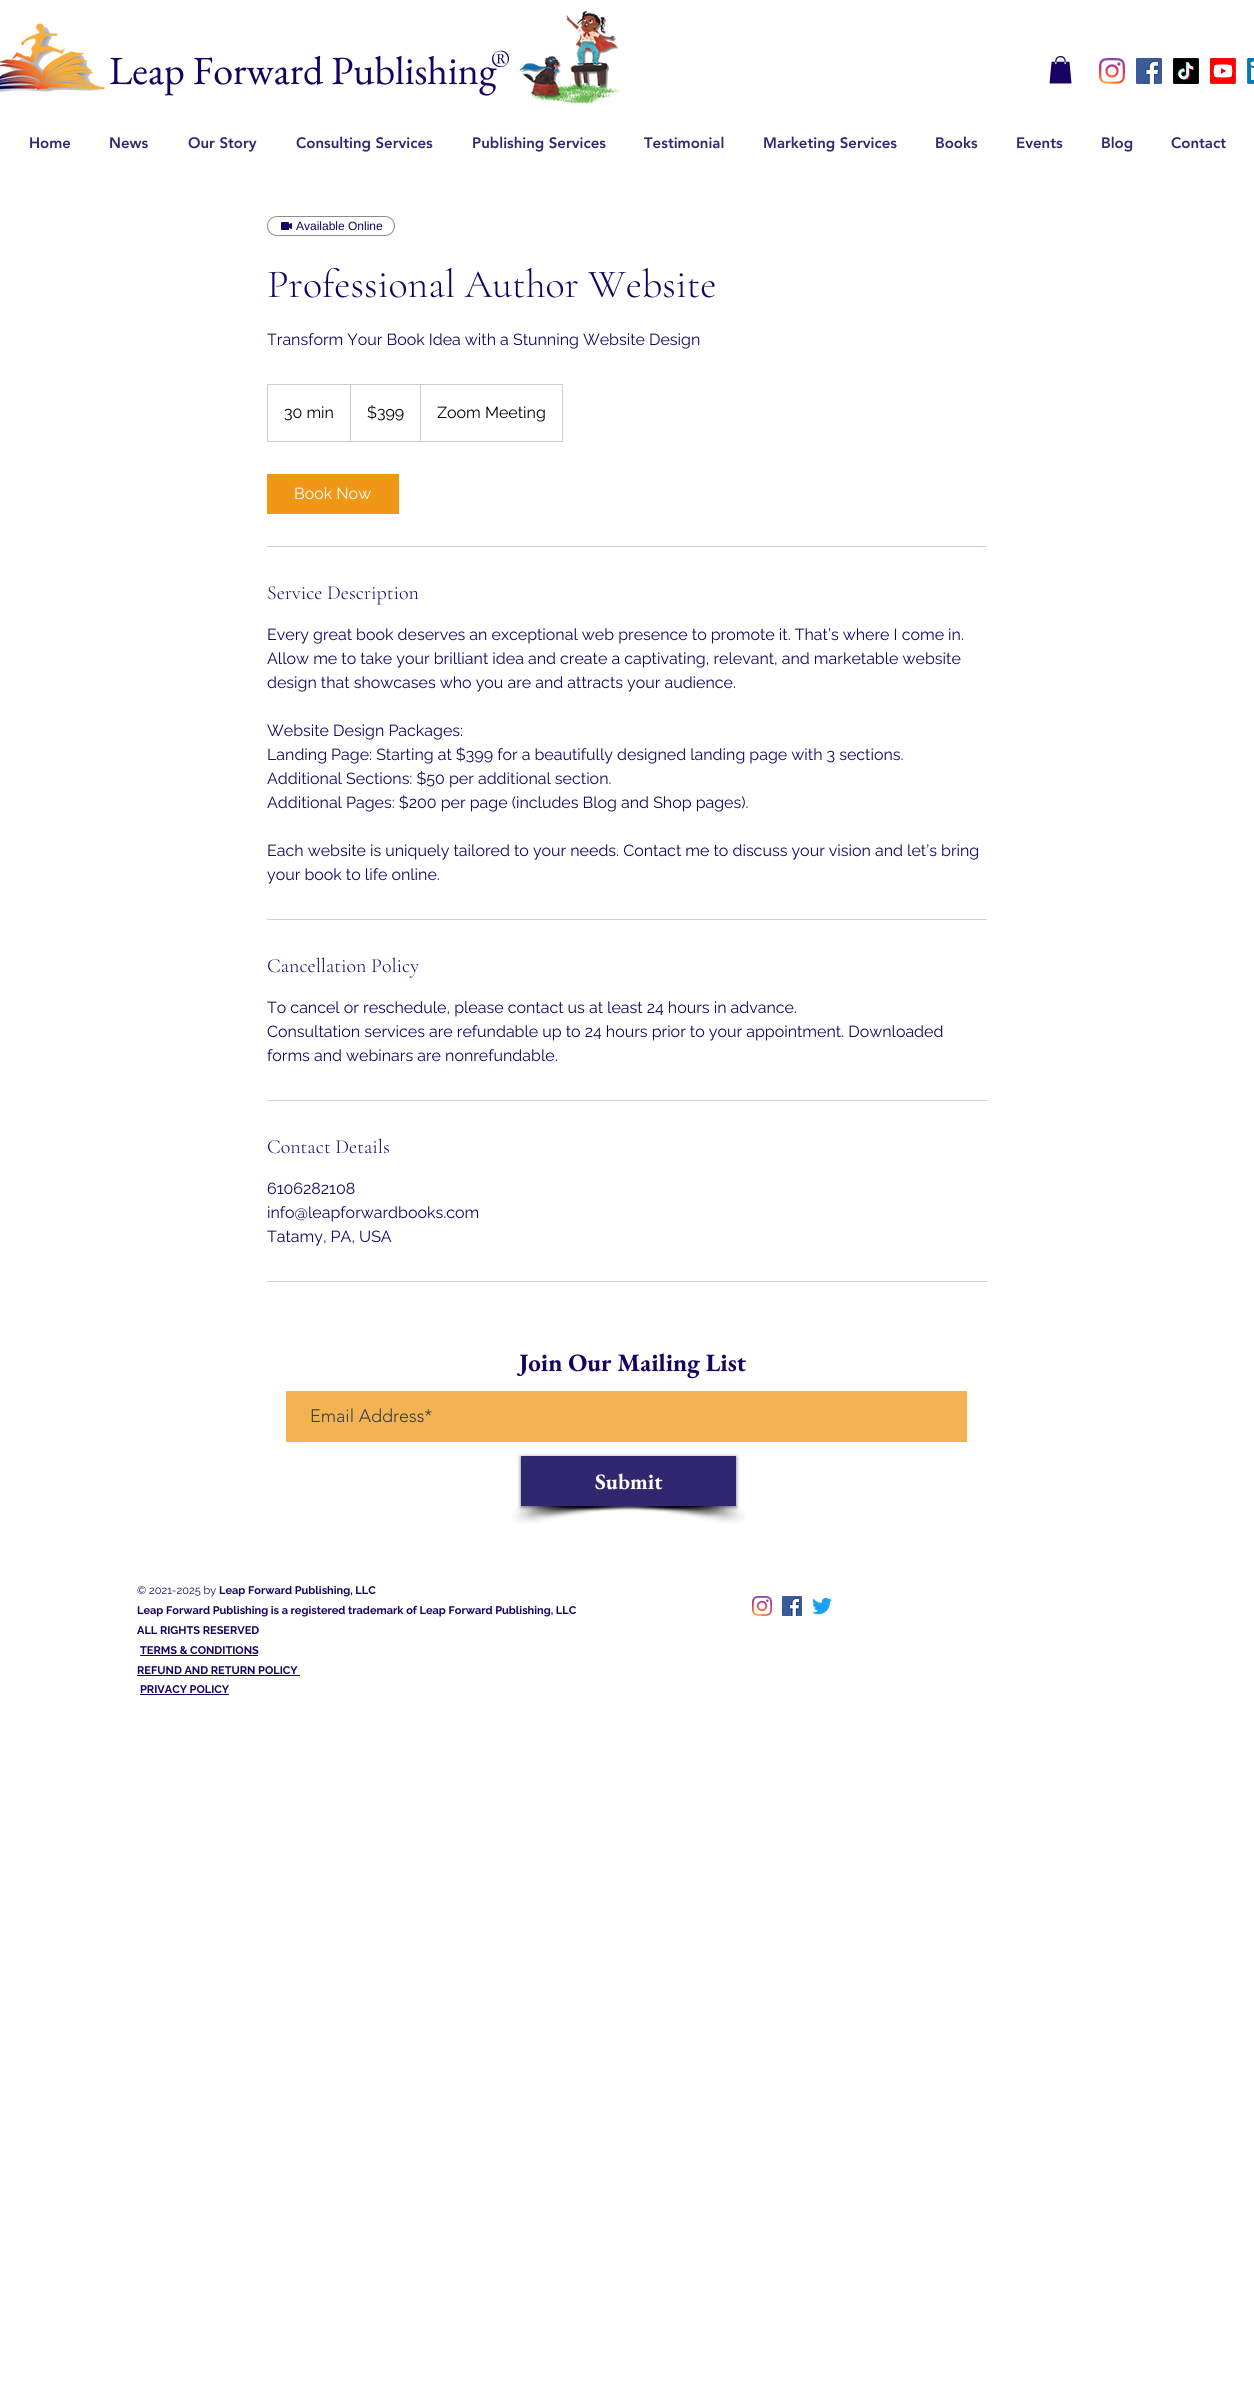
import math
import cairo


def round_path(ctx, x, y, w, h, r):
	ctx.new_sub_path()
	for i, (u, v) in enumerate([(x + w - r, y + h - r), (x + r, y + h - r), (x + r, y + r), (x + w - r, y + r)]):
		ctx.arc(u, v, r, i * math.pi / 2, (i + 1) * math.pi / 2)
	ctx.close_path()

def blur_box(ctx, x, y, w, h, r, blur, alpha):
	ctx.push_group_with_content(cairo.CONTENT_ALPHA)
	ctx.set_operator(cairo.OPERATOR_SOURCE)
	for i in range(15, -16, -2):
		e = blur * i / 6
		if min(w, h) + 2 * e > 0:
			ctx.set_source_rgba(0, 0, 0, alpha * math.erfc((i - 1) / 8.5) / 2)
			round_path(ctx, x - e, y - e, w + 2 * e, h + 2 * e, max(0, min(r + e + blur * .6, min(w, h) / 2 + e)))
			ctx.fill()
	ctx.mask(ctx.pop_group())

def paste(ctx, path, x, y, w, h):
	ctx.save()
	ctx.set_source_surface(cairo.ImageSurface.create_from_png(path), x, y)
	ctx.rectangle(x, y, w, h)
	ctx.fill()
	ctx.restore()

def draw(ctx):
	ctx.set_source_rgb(1, 1, 1)
	ctx.paint()
	paste(ctx, 'media/1.png', 0, 23, 105, 69)
	ctx.select_font_face('EB Garamond')
	ctx.set_font_size(40)
	ctx.set_source_rgb(0.086, 0.012, 0.38)
	ctx.move_to(109, 84)
	ctx.show_text('Leap Forward Publishing')
	ctx.select_font_face('Cormorant Garamond Medium')
	ctx.set_font_size(28)
	ctx.move_to(490, 71)
	ctx.show_text('®')
	paste(ctx, 'media/2.png', 519, 11, 102, 93)
	paste(ctx, 'media/3.png', 1049, 56, 23, 28)
	paste(ctx, 'media/4.png', 1099, 58, 26, 26)
	paste(ctx, 'media/5.png', 1136, 58, 26, 26)
	paste(ctx, 'media/6.png', 1173, 58, 26, 26)
	paste(ctx, 'media/7.png', 1210, 58, 26, 26)
	paste(ctx, 'media/8.png', 1247, 58, 7, 26)
	ctx.select_font_face('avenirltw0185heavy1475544 Black')
	ctx.set_font_size(15)
	ctx.set_source_rgb(0.188, 0.157, 0.435)
	for x, y, s in [
		(29, 148, 'Home'),
		(109, 148, 'News'),
		(188, 148, 'Our Story'),
		(296, 148, 'Consulting Services'),
		(472, 148, 'Publishing Services'),
		(644, 148, 'Testimonial'),
		(763, 148, 'Marketing Services'),
		(935, 148, 'Books'),
		(1016, 148, 'Events'),
		(1101, 148, 'Blog'),
		(1171, 148, 'Contact'),
	]:
		ctx.move_to(x, y)
		ctx.show_text(s)
	round_path(ctx, 267.5, 216.5, 127, 19, 9.5)
	ctx.set_source_rgb(0.549, 0.549, 0.549)
	ctx.set_line_width(1)
	ctx.stroke()
	paste(ctx, 'media/9.png', 281, 222, 11, 8)
	ctx.select_font_face('Liberation Sans')
	ctx.set_font_size(12)
	ctx.set_source_rgb(0.086, 0.012, 0.38)
	ctx.move_to(296, 230)
	ctx.show_text('Available Online')
	ctx.select_font_face('Cormorant Garamond Light')
	ctx.set_font_size(40)
	ctx.move_to(267, 297)
	ctx.show_text('Professional Author Website')
	ctx.select_font_face('Raleway')
	ctx.set_font_size(16)
	ctx.move_to(267, 345)
	ctx.show_text('Transform Your Book Idea with a Stunning Website Design')
	ctx.rectangle(267.5, 384.5, 295, 57)
	ctx.set_source_rgb(0.8, 0.8, 0.8)
	ctx.stroke()
	ctx.set_source_rgb(0, 0, 0)
	ctx.move_to(284, 418)
	ctx.show_text('30 min')
	ctx.set_source_rgb(0.8, 0.8, 0.8)
	ctx.new_path()
	ctx.move_to(350, 441)
	ctx.line_to(350, 384)
	ctx.line_to(351, 385)
	ctx.line_to(351, 441)
	ctx.close_path()
	ctx.fill()
	ctx.set_source_rgb(0, 0, 0)
	ctx.move_to(367, 418)
	ctx.show_text('$399')
	ctx.set_source_rgb(0.8, 0.8, 0.8)
	ctx.new_path()
	ctx.move_to(420, 441)
	ctx.line_to(420, 384)
	ctx.line_to(421, 385)
	ctx.line_to(421, 441)
	ctx.close_path()
	ctx.fill()
	ctx.set_source_rgb(0, 0, 0)
	ctx.move_to(437, 418)
	ctx.show_text('Zoom Meeting')
	ctx.set_source_rgb(0.941, 0.596, 0.086)
	ctx.rectangle(267, 474, 132, 40)
	ctx.fill()
	ctx.set_source_rgb(1, 1, 1)
	ctx.move_to(294, 499)
	ctx.show_text('Book Now')
	ctx.set_source_rgb(0.816, 0.804, 0.875)
	ctx.rectangle(267, 546, 720, 1)
	ctx.fill()
	ctx.select_font_face('Cormorant Garamond Light')
	ctx.set_font_size(20)
	ctx.set_source_rgb(0.086, 0.012, 0.38)
	ctx.move_to(267, 599)
	ctx.show_text('Service Description')
	ctx.select_font_face('Raleway')
	ctx.set_font_size(16)
	for x, y, s in [
		(267, 640, 'Every great book deserves an exceptional web presence to promote it. That’s where I come in.'),
		(267, 664, 'Allow me to take your brilliant idea and create a captivating, relevant, and marketable website'),
		(267, 688, 'design that showcases who you are and attracts your audience.'),
		(267, 736, 'Website Design Packages:'),
		(267, 760, 'Landing Page: Starting at $399 for a beautifully designed landing page with 3 sections.'),
		(267, 784, 'Additional Sections: $50 per additional section.'),
		(267, 808, 'Additional Pages: $200 per page (includes Blog and Shop pages).'),
		(267, 856, 'Each website is uniquely tailored to your needs. Contact me to discuss your vision and let’s bring'),
		(267, 880, 'your book to life online.'),
	]:
		ctx.move_to(x, y)
		ctx.show_text(s)
	ctx.set_source_rgb(0.816, 0.804, 0.875)
	ctx.rectangle(267, 919, 720, 1)
	ctx.fill()
	ctx.select_font_face('Cormorant Garamond Light')
	ctx.set_font_size(20)
	ctx.set_source_rgb(0.086, 0.012, 0.38)
	ctx.move_to(267, 972)
	ctx.show_text('Cancellation Policy')
	ctx.select_font_face('Raleway')
	ctx.set_font_size(16)
	for x, y, s in [
		(267, 1013, 'To cancel or reschedule, please contact us at least 24 hours in advance.'),
		(267, 1037, 'Consultation services are refundable up to 24 hours prior to your appointment. Downloaded'),
		(267, 1061, 'forms and webinars are nonrefundable.'),
	]:
		ctx.move_to(x, y)
		ctx.show_text(s)
	ctx.set_source_rgb(0.816, 0.804, 0.875)
	ctx.rectangle(267, 1100, 720, 1)
	ctx.fill()
	ctx.select_font_face('Cormorant Garamond Light')
	ctx.set_font_size(20)
	ctx.set_source_rgb(0.086, 0.012, 0.38)
	ctx.move_to(267, 1153)
	ctx.show_text('Contact Details')
	ctx.select_font_face('Raleway')
	ctx.set_font_size(16)
	for x, y, s in [
		(267, 1194, '6106282108'),
		(267, 1218, 'info@leapforwardbooks.com'),
		(267, 1242, 'Tatamy, PA, USA'),
	]:
		ctx.move_to(x, y)
		ctx.show_text(s)
	ctx.set_source_rgb(0.816, 0.804, 0.875)
	ctx.rectangle(267, 1281, 720, 1)
	ctx.fill()
	ctx.select_font_face('EB Garamond', cairo.FONT_SLANT_NORMAL, cairo.FONT_WEIGHT_BOLD)
	ctx.set_font_size(25)
	ctx.set_source_rgb(0.086, 0.012, 0.38)
	ctx.move_to(519, 1371)
	ctx.show_text('Join Our Mailing List')
	ctx.set_source_rgb(0.957, 0.702, 0.325)
	ctx.rectangle(286, 1391, 681, 51)
	ctx.fill()
	ctx.select_font_face('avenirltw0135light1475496 Light')
	ctx.set_font_size(18)
	ctx.set_source_rgb(0.216, 0.231, 0.302)
	ctx.move_to(310, 1422)
	ctx.show_text('Email Address*')
	paste(ctx, 'media/10.png', 512, 1506, 154, 18)
	paste(ctx, 'media/11.png', 608, 1506, 137, 18)
	ctx.set_source_rgb(0, 0, 0)
	blur_box(ctx, 521, 1457, 215, 50, 0, 2, 0.6)
	ctx.set_source_rgb(0.188, 0.157, 0.435)
	ctx.rectangle(521, 1456, 215, 50)
	ctx.fill()
	ctx.select_font_face('EB Garamond', cairo.FONT_SLANT_NORMAL, cairo.FONT_WEIGHT_BOLD)
	ctx.set_font_size(22)
	ctx.set_source_rgb(1, 1, 1)
	ctx.move_to(595, 1489)
	ctx.show_text('Submit')
	ctx.select_font_face('Raleway')
	ctx.set_font_size(11)
	ctx.set_source_rgb(0.086, 0.012, 0.38)
	ctx.move_to(137, 1594)
	ctx.show_text('© 2021-2025 by')
	ctx.select_font_face('Raleway', cairo.FONT_SLANT_NORMAL, cairo.FONT_WEIGHT_BOLD)
	for x, y, s in [
		(219, 1594, 'Leap Forward Publishing, LLC'),
		(137, 1614, 'Leap Forward Publishing is a registered trademark of Leap Forward Publishing, LLC'),
		(137, 1634, 'ALL RIGHTS RESERVED'),
		(140, 1654, 'TERMS & CONDITIONS'),
	]:
		ctx.move_to(x, y)
		ctx.show_text(s)
	ctx.rectangle(140, 1655, 118, 1)
	ctx.fill()
	ctx.move_to(137, 1674)
	ctx.show_text('REFUND AND RETURN POLICY')
	ctx.rectangle(137, 1675, 163, 1)
	ctx.fill()
	ctx.move_to(140, 1693)
	ctx.show_text('PRIVACY POLICY')
	ctx.rectangle(140, 1694, 89, 1)
	ctx.fill()
	paste(ctx, 'media/12.png', 752, 1596, 20, 20)
	paste(ctx, 'media/13.png', 782, 1596, 20, 20)
	paste(ctx, 'media/14.png', 812, 1597, 20, 18)


surface = cairo.ImageSurface(cairo.FORMAT_RGB24, 1254, 2403)
ctx = cairo.Context(surface)
options = cairo.FontOptions()
options.set_hint_metrics(cairo.HINT_METRICS_OFF)
options.set_hint_style(cairo.HINT_STYLE_NONE)
ctx.set_font_options(options)
ctx.set_miter_limit(4)
draw(ctx)
surface.write_to_png('image.png')
